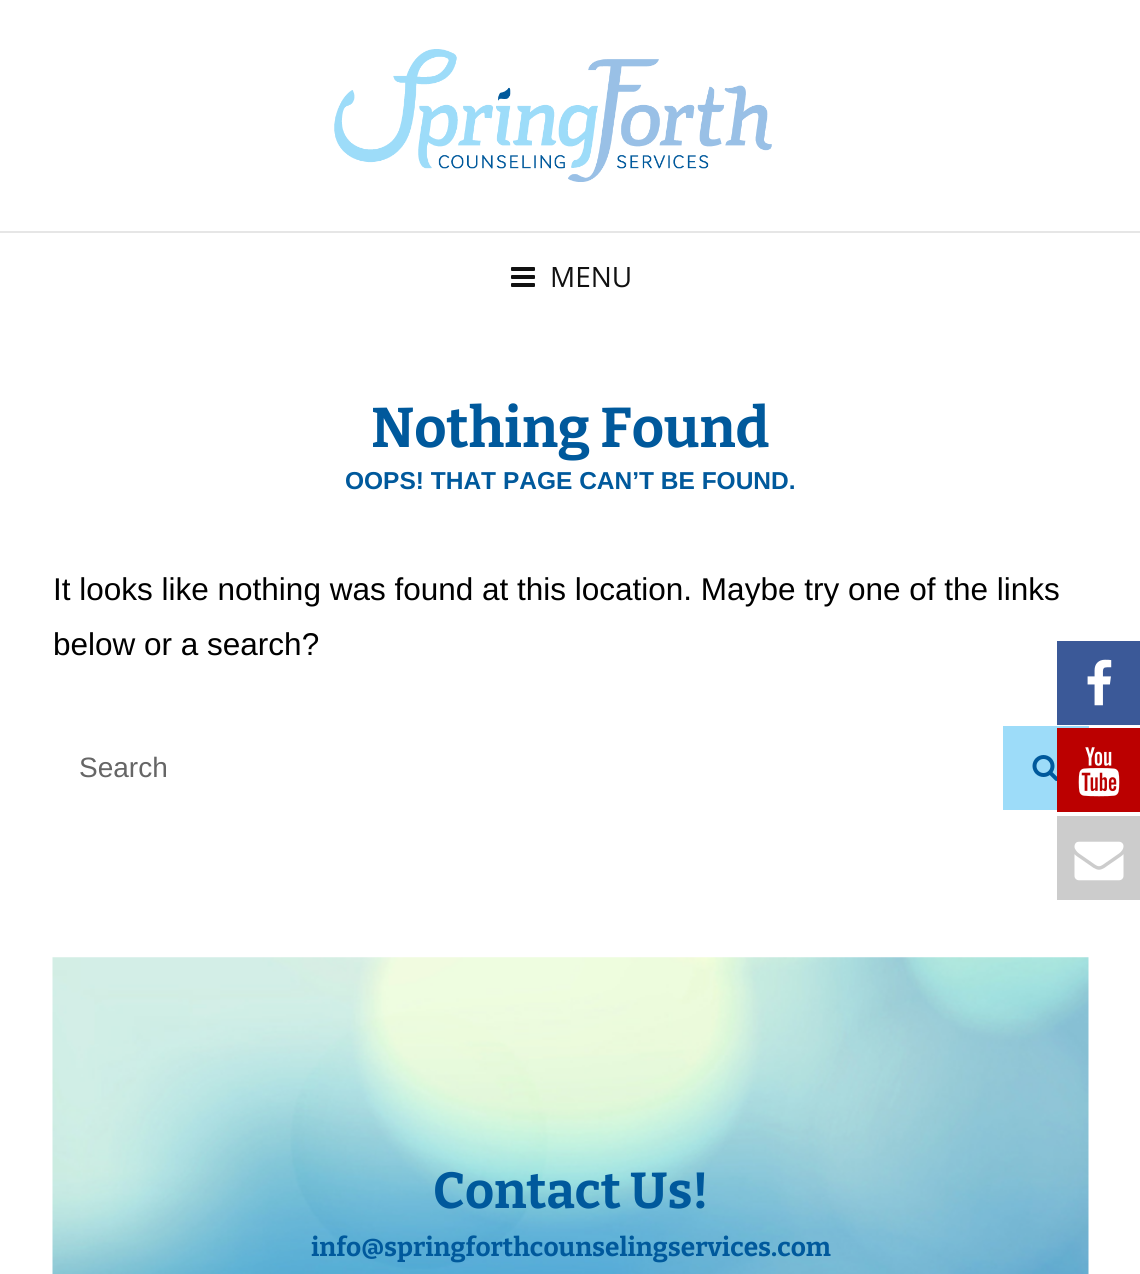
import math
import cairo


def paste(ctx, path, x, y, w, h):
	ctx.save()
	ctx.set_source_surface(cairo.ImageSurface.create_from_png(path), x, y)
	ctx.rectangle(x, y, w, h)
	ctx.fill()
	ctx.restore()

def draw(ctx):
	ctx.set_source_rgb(1, 1, 1)
	ctx.paint()
	paste(ctx, 'media/1.png', 334, 49, 438, 133)
	ctx.set_source_rgb(0.902, 0.902, 0.902)
	ctx.rectangle(0, 231, 1140, 2)
	ctx.fill()
	paste(ctx, 'media/2.png', 511, 267, 24, 20)
	ctx.select_font_face('Open Sans')
	ctx.set_font_size(28)
	ctx.set_source_rgb(0.067, 0.067, 0.067)
	ctx.move_to(550, 287)
	ctx.show_text('MENU')
	ctx.select_font_face('Bitter', cairo.FONT_SLANT_NORMAL, cairo.FONT_WEIGHT_BOLD)
	ctx.set_font_size(56)
	ctx.set_source_rgb(0, 0.349, 0.612)
	ctx.move_to(371, 447)
	ctx.show_text('Nothing Found')
	ctx.select_font_face('Liberation Sans', cairo.FONT_SLANT_NORMAL, cairo.FONT_WEIGHT_BOLD)
	ctx.set_font_size(24.5)
	ctx.move_to(345, 489)
	ctx.show_text('OOPS! THAT PAGE CAN’T BE FOUND.')
	ctx.select_font_face('Liberation Sans')
	ctx.set_font_size(31.5)
	ctx.set_source_rgb(0, 0, 0)
	ctx.move_to(53, 600)
	ctx.show_text('It looks like nothing was found at this location. Maybe try one of the links')
	ctx.move_to(53, 655)
	ctx.show_text('below or a search?')
	ctx.set_font_size(28)
	ctx.set_source_rgb(0.4, 0.4, 0.4)
	ctx.move_to(79, 777)
	ctx.show_text('Search')
	ctx.set_source_rgb(0.616, 0.863, 0.976)
	ctx.rectangle(1003, 726, 86, 84)
	ctx.fill()
	paste(ctx, 'media/3.png', 1032, 755, 25, 26)
	paste(ctx, 'media/4.png', 52, 957, 1037, 317)
	ctx.select_font_face('Bitter', cairo.FONT_SLANT_NORMAL, cairo.FONT_WEIGHT_BOLD)
	ctx.set_font_size(50.5)
	ctx.set_source_rgb(0, 0.349, 0.612)
	ctx.move_to(433, 1208)
	ctx.show_text('Contact Us!')
	ctx.set_font_size(26.25)
	ctx.move_to(311, 1256)
	ctx.show_text('info@springforthcounselingservices.com')
	ctx.set_source_rgb(0.231, 0.349, 0.596)
	ctx.rectangle(1057, 641, 83, 84)
	ctx.fill()
	paste(ctx, 'media/5.png', 1087, 659, 25, 47)
	ctx.set_source_rgb(0.733, 0, 0)
	ctx.rectangle(1057, 728, 83, 84)
	ctx.fill()
	paste(ctx, 'media/6.png', 1078, 747, 42, 50)
	ctx.set_source_rgb(0.8, 0.8, 0.8)
	ctx.rectangle(1057, 816, 83, 84)
	ctx.fill()
	paste(ctx, 'media/7.png', 1074, 841, 50, 40)


surface = cairo.ImageSurface(cairo.FORMAT_RGB24, 1140, 1274)
ctx = cairo.Context(surface)
options = cairo.FontOptions()
options.set_hint_metrics(cairo.HINT_METRICS_OFF)
options.set_hint_style(cairo.HINT_STYLE_NONE)
ctx.set_font_options(options)
ctx.set_miter_limit(4)
draw(ctx)
surface.write_to_png('image.png')
